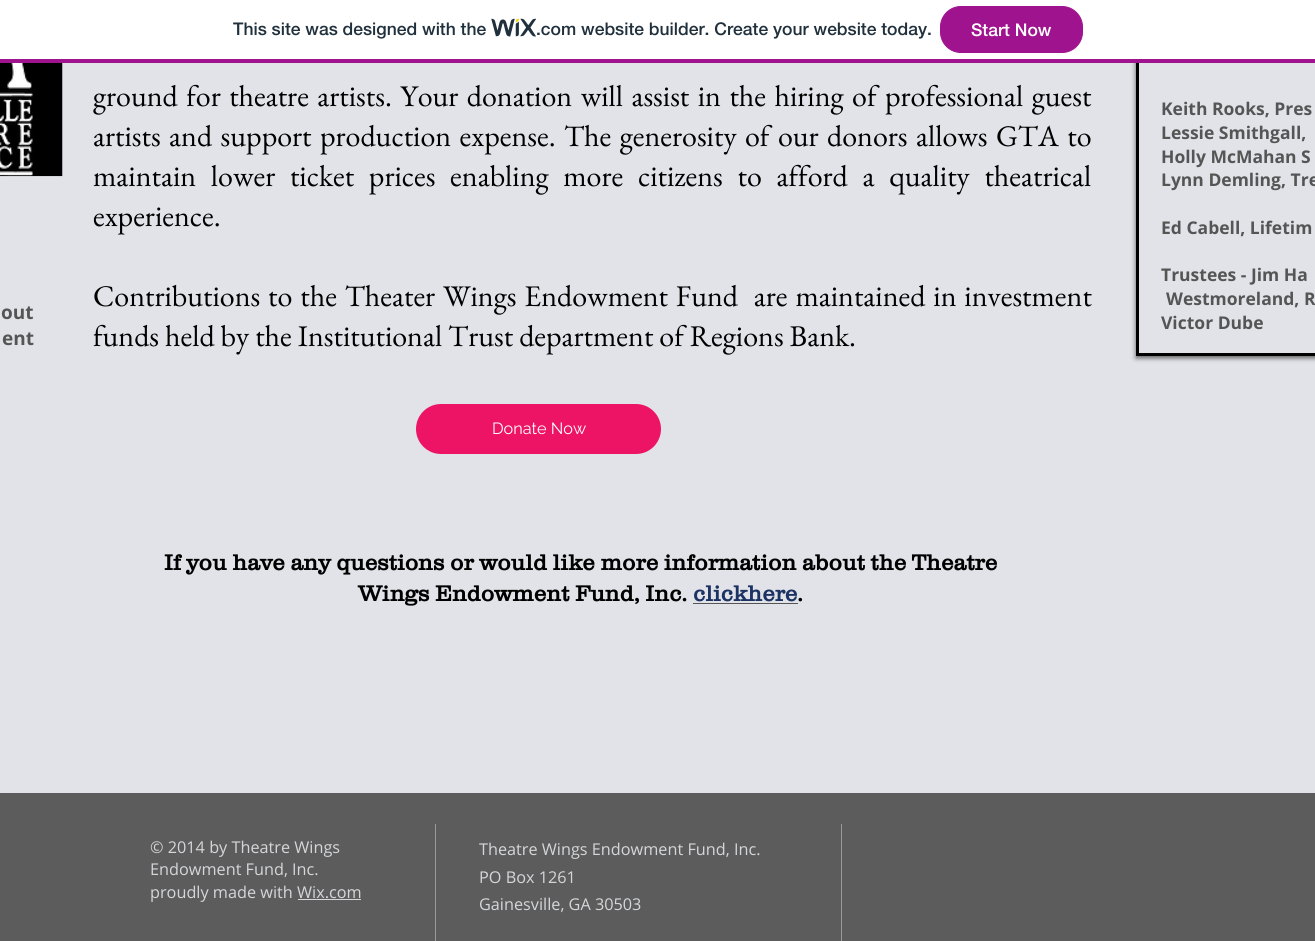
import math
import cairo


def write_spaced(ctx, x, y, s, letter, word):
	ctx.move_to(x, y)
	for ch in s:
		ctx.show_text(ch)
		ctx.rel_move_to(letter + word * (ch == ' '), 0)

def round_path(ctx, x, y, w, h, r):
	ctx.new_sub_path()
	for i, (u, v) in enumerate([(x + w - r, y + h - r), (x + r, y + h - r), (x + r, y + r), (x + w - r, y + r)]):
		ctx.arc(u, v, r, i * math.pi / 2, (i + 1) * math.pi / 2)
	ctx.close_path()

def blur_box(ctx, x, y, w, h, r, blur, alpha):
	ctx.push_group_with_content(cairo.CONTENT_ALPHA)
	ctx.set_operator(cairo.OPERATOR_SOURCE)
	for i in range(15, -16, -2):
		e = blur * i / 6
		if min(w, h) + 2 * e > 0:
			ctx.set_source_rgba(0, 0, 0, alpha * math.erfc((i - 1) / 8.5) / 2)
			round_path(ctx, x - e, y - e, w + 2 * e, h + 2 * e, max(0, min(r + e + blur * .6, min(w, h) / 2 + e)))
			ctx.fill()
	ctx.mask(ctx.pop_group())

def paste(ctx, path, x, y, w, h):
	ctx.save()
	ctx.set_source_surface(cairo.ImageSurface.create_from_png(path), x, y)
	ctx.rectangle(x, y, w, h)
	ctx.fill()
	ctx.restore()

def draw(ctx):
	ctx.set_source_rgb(0.882, 0.89, 0.91)
	ctx.paint()
	ctx.save()
	ctx.set_fill_rule(cairo.FILL_RULE_EVEN_ODD)
	ctx.new_path()
	ctx.move_to(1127, 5)
	ctx.line_to(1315, 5)
	ctx.line_to(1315, 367)
	ctx.line_to(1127, 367)
	ctx.close_path()
	ctx.move_to(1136, 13)
	ctx.line_to(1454, 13)
	ctx.line_to(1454, 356)
	ctx.line_to(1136, 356)
	ctx.close_path()
	ctx.clip()
	ctx.set_source_rgb(0, 0, 0)
	blur_box(ctx, 1136, 14, 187, 344, 0, 2.5, 0.6)
	ctx.restore()
	ctx.rectangle(1137.5, 14.5, 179, 340)
	ctx.set_source_rgb(0, 0, 0)
	ctx.set_line_width(3)
	ctx.stroke()
	ctx.set_source_rgb(1, 1, 1)
	ctx.rectangle(0, 0, 1315, 59)
	ctx.fill()
	ctx.set_source_rgb(0.627, 0.075, 0.557)
	ctx.rectangle(0, 59, 1315, 4)
	ctx.fill()
	ctx.select_font_face('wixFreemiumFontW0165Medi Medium')
	ctx.set_font_size(17.5)
	ctx.set_source_rgb(0.125, 0.188, 0.235)
	ctx.move_to(233, 35)
	ctx.show_text('This site was designed with the')
	paste(ctx, 'media/1.png', 491, 18, 45, 19)
	ctx.move_to(536, 35)
	ctx.show_text('.com website builder. Create your website today.')
	ctx.set_source_rgb(0.627, 0.075, 0.557)
	round_path(ctx, 940.5, 6.5, 142, 46, 20.5)
	ctx.fill_preserve()
	ctx.set_line_width(1)
	ctx.stroke()
	ctx.set_source_rgb(1, 1, 1)
	ctx.move_to(971, 36)
	ctx.show_text('Start Now')
	paste(ctx, 'media/2.png', 0, 63, 63, 114)
	ctx.select_font_face('EB Garamond')
	ctx.set_font_size(30)
	ctx.set_source_rgb(0, 0, 0)
	for x, y, s in [
		(93, 106, 'ground for theatre artists. Your donation will assist in the hiring of professional guest'),
		(93, 146, 'artists and support production expense.'),
		(564, 146, 'The generosity of our donors allows GTA to'),
	]:
		write_spaced(ctx, x, y, s, 0, 2.5)
	write_spaced(ctx, 93, 186, 'maintain lower ticket prices enabling more citizens to afford a quality theatrical', 0, 8.75)
	ctx.move_to(93, 226)
	ctx.show_text('experience.')
	write_spaced(ctx, 93, 306, 'Contributions to the Theater Wings Endowment Fund  are maintained in investment', 0, 1.9)
	ctx.move_to(93, 346)
	ctx.show_text('funds held by the Institutional Trust department of Regions Bank.')
	ctx.select_font_face('Open Sans', cairo.FONT_SLANT_NORMAL, cairo.FONT_WEIGHT_BOLD)
	ctx.set_font_size(19)
	ctx.set_source_rgb(0.333, 0.333, 0.333)
	ctx.move_to(1, 319)
	ctx.show_text('out')
	ctx.move_to(2, 345)
	ctx.show_text('ent')
	ctx.set_font_size(17.5)
	for x, y, s in [
		(1161, 115, 'Keith Rooks, Pres'),
		(1161, 139, 'Lessie Smithgall,'),
		(1161, 163, 'Holly McMahan S'),
		(1161, 186, 'Lynn Demling, Tre'),
		(1161, 234, 'Ed Cabell, Lifetim'),
		(1161, 281, 'Trustees - Jim Ha'),
		(1166, 305, 'Westmoreland, R'),
		(1161, 329, 'Victor Dube'),
	]:
		ctx.move_to(x, y)
		ctx.show_text(s)
	ctx.set_source_rgb(0.929, 0.082, 0.4)
	round_path(ctx, 416, 404, 245, 50, 25)
	ctx.fill()
	ctx.select_font_face('Raleway')
	ctx.set_font_size(16.25)
	ctx.set_source_rgb(1, 1, 1)
	ctx.move_to(492, 434)
	ctx.show_text('Donate Now')
	ctx.select_font_face('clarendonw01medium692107', cairo.FONT_SLANT_NORMAL, cairo.FONT_WEIGHT_BOLD)
	ctx.set_font_size(22.5)
	ctx.set_source_rgb(0, 0, 0)
	ctx.move_to(164, 570)
	ctx.show_text('If you have any questions or would like more information about the Theatre')
	ctx.move_to(358, 601)
	ctx.show_text('Wings Endowment Fund, Inc.')
	ctx.set_source_rgb(0.11, 0.196, 0.384)
	ctx.move_to(693, 601)
	ctx.show_text('clickhere')
	ctx.set_source_rgb(0, 0, 0)
	ctx.move_to(797, 601)
	ctx.show_text('.')
	ctx.set_source_rgb(0.333, 0.333, 0.333)
	ctx.rectangle(693, 603, 105, 1)
	ctx.fill()
	ctx.set_source_rgb(0.361, 0.361, 0.361)
	ctx.rectangle(0, 793, 1315, 148)
	ctx.fill()
	ctx.select_font_face('Open Sans')
	ctx.set_font_size(16.25)
	ctx.set_source_rgb(0.835, 0.839, 0.851)
	for x, y, s in [
		(150, 853, '© 2014 by Theatre Wings'),
		(150, 875, 'Endowment Fund, Inc.'),
		(150, 898, 'proudly made with Wix.com'),
	]:
		ctx.move_to(x, y)
		ctx.show_text(s)
	ctx.rectangle(298, 899, 63, 1)
	ctx.fill()
	ctx.set_source_rgb(0.6, 0.6, 0.608)
	ctx.rectangle(435, 824, 1, 117)
	ctx.fill()
	ctx.set_source_rgb(0.835, 0.839, 0.851)
	for x, y, s in [
		(479, 855, 'Theatre Wings Endowment Fund, Inc.'),
		(479, 883, 'PO Box 1261'),
		(479, 910, 'Gainesville, GA 30503'),
	]:
		ctx.move_to(x, y)
		ctx.show_text(s)
	ctx.set_source_rgb(0.6, 0.6, 0.608)
	ctx.rectangle(841, 824, 1, 117)
	ctx.fill()


surface = cairo.ImageSurface(cairo.FORMAT_RGB24, 1315, 941)
ctx = cairo.Context(surface)
options = cairo.FontOptions()
options.set_hint_metrics(cairo.HINT_METRICS_OFF)
options.set_hint_style(cairo.HINT_STYLE_NONE)
ctx.set_font_options(options)
ctx.set_miter_limit(4)
draw(ctx)
surface.write_to_png('image.png')
